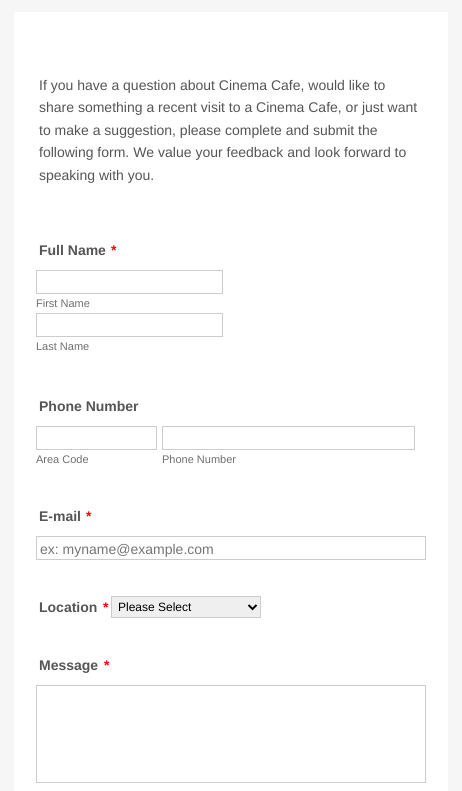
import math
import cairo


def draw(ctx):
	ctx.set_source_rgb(0.961, 0.961, 0.961)
	ctx.paint()
	ctx.set_source_rgb(1, 1, 1)
	ctx.rectangle(14, 12, 434, 779)
	ctx.fill()
	ctx.select_font_face('Liberation Sans')
	ctx.set_font_size(14)
	ctx.set_source_rgb(0.333, 0.333, 0.333)
	for x, y, s in [
		(39, 90, 'If you have a question about Cinema Cafe, would like to'),
		(39, 112, 'share something a recent visit to a Cinema Cafe, or just want'),
		(39, 135, 'to make a suggestion, please complete and submit the'),
		(39, 157, 'following form. We value your feedback and look forward to'),
		(39, 180, 'speaking with you.'),
	]:
		ctx.move_to(x, y)
		ctx.show_text(s)
	ctx.select_font_face('Liberation Sans', cairo.FONT_SLANT_NORMAL, cairo.FONT_WEIGHT_BOLD)
	ctx.move_to(39, 255)
	ctx.show_text('Full Name')
	ctx.set_source_rgb(1, 0, 0)
	ctx.move_to(111, 255)
	ctx.show_text('*')
	ctx.rectangle(36.5, 270.5, 186, 23)
	ctx.set_source_rgb(0.8, 0.8, 0.8)
	ctx.set_line_width(1)
	ctx.stroke()
	ctx.select_font_face('Liberation Sans')
	ctx.set_font_size(11)
	ctx.set_source_rgb(0.435, 0.435, 0.435)
	ctx.move_to(36, 307)
	ctx.show_text('First Name')
	ctx.rectangle(36.5, 313.5, 186, 23)
	ctx.set_source_rgb(0.8, 0.8, 0.8)
	ctx.stroke()
	ctx.set_source_rgb(0.435, 0.435, 0.435)
	ctx.move_to(36, 350)
	ctx.show_text('Last Name')
	ctx.select_font_face('Liberation Sans', cairo.FONT_SLANT_NORMAL, cairo.FONT_WEIGHT_BOLD)
	ctx.set_font_size(14)
	ctx.set_source_rgb(0.333, 0.333, 0.333)
	ctx.move_to(39, 411)
	ctx.show_text('Phone Number')
	ctx.rectangle(36.5, 426.5, 120, 23)
	ctx.set_source_rgb(0.8, 0.8, 0.8)
	ctx.stroke()
	ctx.select_font_face('Liberation Sans')
	ctx.set_font_size(11)
	ctx.set_source_rgb(0.435, 0.435, 0.435)
	ctx.move_to(36, 463)
	ctx.show_text('Area Code')
	ctx.rectangle(162.5, 426.5, 252, 23)
	ctx.set_source_rgb(0.8, 0.8, 0.8)
	ctx.stroke()
	ctx.set_source_rgb(0.435, 0.435, 0.435)
	ctx.move_to(162, 463)
	ctx.show_text('Phone Number')
	ctx.select_font_face('Liberation Sans', cairo.FONT_SLANT_NORMAL, cairo.FONT_WEIGHT_BOLD)
	ctx.set_font_size(14)
	ctx.set_source_rgb(0.333, 0.333, 0.333)
	ctx.move_to(39, 521)
	ctx.show_text('E-mail')
	ctx.set_source_rgb(1, 0, 0)
	ctx.move_to(86, 521)
	ctx.show_text('*')
	ctx.rectangle(36.5, 536.5, 389, 23)
	ctx.set_source_rgb(0.8, 0.8, 0.8)
	ctx.stroke()
	ctx.select_font_face('Liberation Sans')
	ctx.set_source_rgb(0.459, 0.459, 0.459)
	ctx.move_to(40, 554)
	ctx.show_text('ex: myname@example.com')
	ctx.select_font_face('Liberation Sans', cairo.FONT_SLANT_NORMAL, cairo.FONT_WEIGHT_BOLD)
	ctx.set_source_rgb(0.333, 0.333, 0.333)
	ctx.move_to(39, 612)
	ctx.show_text('Location')
	ctx.set_source_rgb(1, 0, 0)
	ctx.move_to(103, 612)
	ctx.show_text('*')
	ctx.set_source_rgb(0.937, 0.937, 0.937)
	ctx.rectangle(111.5, 596.5, 149, 21)
	ctx.fill_preserve()
	ctx.set_source_rgb(0.8, 0.8, 0.8)
	ctx.stroke()
	ctx.new_path()
	ctx.move_to(248.5, 605)
	ctx.line_to(252.5, 609)
	ctx.line_to(256.5, 605)
	ctx.set_source_rgb(0, 0, 0)
	ctx.set_line_width(2)
	ctx.stroke()
	ctx.select_font_face('Liberation Sans')
	ctx.set_font_size(12)
	ctx.move_to(118, 611)
	ctx.show_text('Please Select')
	ctx.select_font_face('Liberation Sans', cairo.FONT_SLANT_NORMAL, cairo.FONT_WEIGHT_BOLD)
	ctx.set_font_size(14)
	ctx.set_source_rgb(0.333, 0.333, 0.333)
	ctx.move_to(39, 670)
	ctx.show_text('Message')
	ctx.set_source_rgb(1, 0, 0)
	ctx.move_to(104, 670)
	ctx.show_text('*')
	ctx.rectangle(36.5, 685.5, 389, 97)
	ctx.set_source_rgb(0.8, 0.8, 0.8)
	ctx.set_line_width(1)
	ctx.stroke()


surface = cairo.ImageSurface(cairo.FORMAT_RGB24, 462, 791)
ctx = cairo.Context(surface)
options = cairo.FontOptions()
options.set_hint_metrics(cairo.HINT_METRICS_OFF)
options.set_hint_style(cairo.HINT_STYLE_NONE)
ctx.set_font_options(options)
ctx.set_miter_limit(4)
draw(ctx)
surface.write_to_png('image.png')
